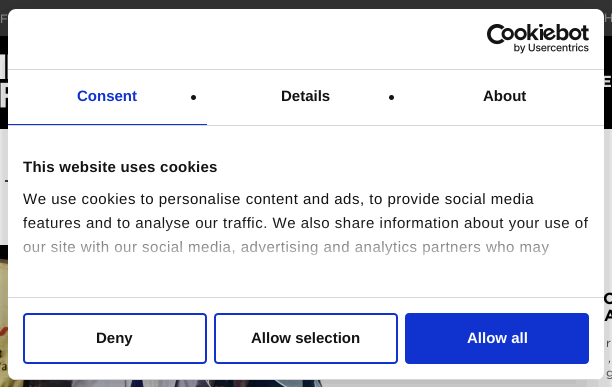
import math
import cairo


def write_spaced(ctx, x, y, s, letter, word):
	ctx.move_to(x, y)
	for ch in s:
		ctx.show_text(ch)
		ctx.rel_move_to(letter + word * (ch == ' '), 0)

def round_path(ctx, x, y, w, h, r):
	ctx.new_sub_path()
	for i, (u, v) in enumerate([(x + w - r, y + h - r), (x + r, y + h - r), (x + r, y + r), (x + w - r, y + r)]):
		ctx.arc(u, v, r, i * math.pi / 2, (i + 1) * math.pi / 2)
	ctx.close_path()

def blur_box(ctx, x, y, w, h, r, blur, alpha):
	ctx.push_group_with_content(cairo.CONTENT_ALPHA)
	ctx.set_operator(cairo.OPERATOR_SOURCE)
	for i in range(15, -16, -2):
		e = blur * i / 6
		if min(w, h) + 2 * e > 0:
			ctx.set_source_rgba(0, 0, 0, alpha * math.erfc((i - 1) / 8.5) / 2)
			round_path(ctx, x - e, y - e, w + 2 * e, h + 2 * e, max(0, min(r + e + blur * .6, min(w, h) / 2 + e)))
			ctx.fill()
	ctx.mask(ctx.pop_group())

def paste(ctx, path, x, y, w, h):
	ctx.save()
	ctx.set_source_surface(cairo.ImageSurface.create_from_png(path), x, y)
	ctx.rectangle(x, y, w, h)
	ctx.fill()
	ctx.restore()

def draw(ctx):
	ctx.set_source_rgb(1, 1, 1)
	ctx.paint()
	ctx.set_source_rgb(0.2, 0.2, 0.2)
	ctx.rectangle(0, 0, 612, 36)
	ctx.fill()
	ctx.select_font_face('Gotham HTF')
	ctx.set_font_size(12)
	ctx.set_source_rgb(0.627, 0.627, 0.627)
	ctx.move_to(0, 23)
	ctx.show_text('F')
	ctx.move_to(604, 22)
	ctx.show_text('H')
	ctx.set_source_rgb(0, 0, 0)
	ctx.rectangle(0, 36, 612, 93)
	ctx.fill()
	paste(ctx, 'media/1.png', 0, 54, 8, 54)
	ctx.select_font_face('Gotham', cairo.FONT_SLANT_NORMAL, cairo.FONT_WEIGHT_BOLD)
	ctx.set_font_size(16)
	ctx.set_source_rgb(1, 1, 1)
	ctx.move_to(601, 87)
	ctx.show_text('E')
	ctx.set_source_rgb(0.263, 0.251, 0.286)
	ctx.rectangle(5, 180, 3, 2)
	ctx.fill()
	paste(ctx, 'media/2.png', 0, 245, 323, 142)
	ctx.set_source_rgb(0, 0, 0)
	ctx.move_to(603, 304)
	ctx.show_text('C')
	ctx.move_to(604, 321)
	ctx.show_text('A')
	ctx.select_font_face('Gotham HTF')
	ctx.set_font_size(12)
	ctx.set_source_rgb(0.302, 0.302, 0.302)
	for x, y, s in [
		(606, 347, 'r'),
		(608, 362, ','),
		(606, 377, 'g'),
	]:
		ctx.move_to(x, y)
		ctx.show_text(s)
	ctx.set_source_rgb(0, 0, 0)
	blur_box(ctx, 8, 41, 596, 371, 8, 34, 0.3)
	ctx.set_source_rgb(1, 1, 1)
	round_path(ctx, 8, 9, 596, 371, 8)
	ctx.fill()
	ctx.set_source_rgb(0.839, 0.839, 0.839)
	ctx.rectangle(8, 69, 596, 1)
	ctx.fill()
	paste(ctx, 'media/3.png', 487, 24, 102, 30)
	ctx.rectangle(8, 125, 596, 1)
	ctx.fill()
	ctx.set_source_rgb(0.063, 0.196, 0.812)
	ctx.rectangle(8, 124, 199, 1)
	ctx.fill()
	ctx.select_font_face('Liberation Sans', cairo.FONT_SLANT_NORMAL, cairo.FONT_WEIGHT_BOLD)
	ctx.set_font_size(15)
	ctx.move_to(77, 101)
	ctx.show_text('Consent')
	ctx.set_source_rgb(0.078, 0.078, 0.078)
	ctx.new_path()
	ctx.arc(193.5, 97.5, 2.5, 0, 2 * math.pi)
	ctx.fill()
	ctx.move_to(281, 101)
	ctx.show_text('Details')
	ctx.new_path()
	ctx.arc(391.5, 97.5, 2.5, 0, 2 * math.pi)
	ctx.fill()
	ctx.move_to(483, 101)
	ctx.show_text('About')
	ctx.set_source_rgb(0.839, 0.839, 0.839)
	ctx.rectangle(8, 297, 596, 1)
	ctx.fill()
	ctx.set_source_rgb(0.078, 0.078, 0.078)
	write_spaced(ctx, 23, 172, 'This website uses cookies', 0.25, 0)
	ctx.select_font_face('Liberation Sans')
	for x, y, s in [
		(23, 204, 'We use cookies to personalise content and ads, to provide social media'),
		(23, 228, 'features and to analyse our traffic. We also share information about your use of'),
		(23, 252, 'our site with our social media, advertising and analytics partners who may'),
	]:
		write_spaced(ctx, x, y, s, 0.5, 0)
	gradient = cairo.LinearGradient(300, 297, 300, 222)
	gradient.add_color_stop_rgba(0, 1, 1, 1, 1)
	gradient.add_color_stop_rgba(0.5, 1, 1, 1, 0.8)
	gradient.add_color_stop_rgba(1, 1, 1, 1, 0)
	ctx.set_source(gradient)
	ctx.rectangle(23, 223, 564, 33)
	ctx.fill()
	ctx.save()
	round_path(ctx, 8, 9, 596, 371, 8)
	ctx.clip()
	ctx.set_source_rgb(0.839, 0.839, 0.839)
	ctx.rectangle(8, 379, 596, 1)
	ctx.fill()
	ctx.restore()
	round_path(ctx, 24, 314, 182, 49, 3)
	ctx.set_source_rgb(0.063, 0.196, 0.812)
	ctx.stroke()
	ctx.select_font_face('Liberation Sans', cairo.FONT_SLANT_NORMAL, cairo.FONT_WEIGHT_BOLD)
	ctx.set_source_rgb(0.078, 0.078, 0.078)
	ctx.move_to(96, 343)
	ctx.show_text('Deny')
	round_path(ctx, 215, 314, 182, 49, 3)
	ctx.set_source_rgb(0.063, 0.196, 0.812)
	ctx.stroke()
	ctx.set_source_rgb(0.078, 0.078, 0.078)
	ctx.move_to(251, 343)
	ctx.show_text('Allow selection')
	ctx.set_source_rgb(0.063, 0.196, 0.812)
	round_path(ctx, 406, 314, 182, 49, 3)
	ctx.fill_preserve()
	ctx.stroke()
	ctx.set_source_rgb(1, 1, 1)
	ctx.move_to(467, 343)
	ctx.show_text('Allow all')


surface = cairo.ImageSurface(cairo.FORMAT_RGB24, 612, 387)
ctx = cairo.Context(surface)
options = cairo.FontOptions()
options.set_hint_metrics(cairo.HINT_METRICS_OFF)
options.set_hint_style(cairo.HINT_STYLE_NONE)
ctx.set_font_options(options)
ctx.set_miter_limit(4)
draw(ctx)
surface.write_to_png('image.png')
